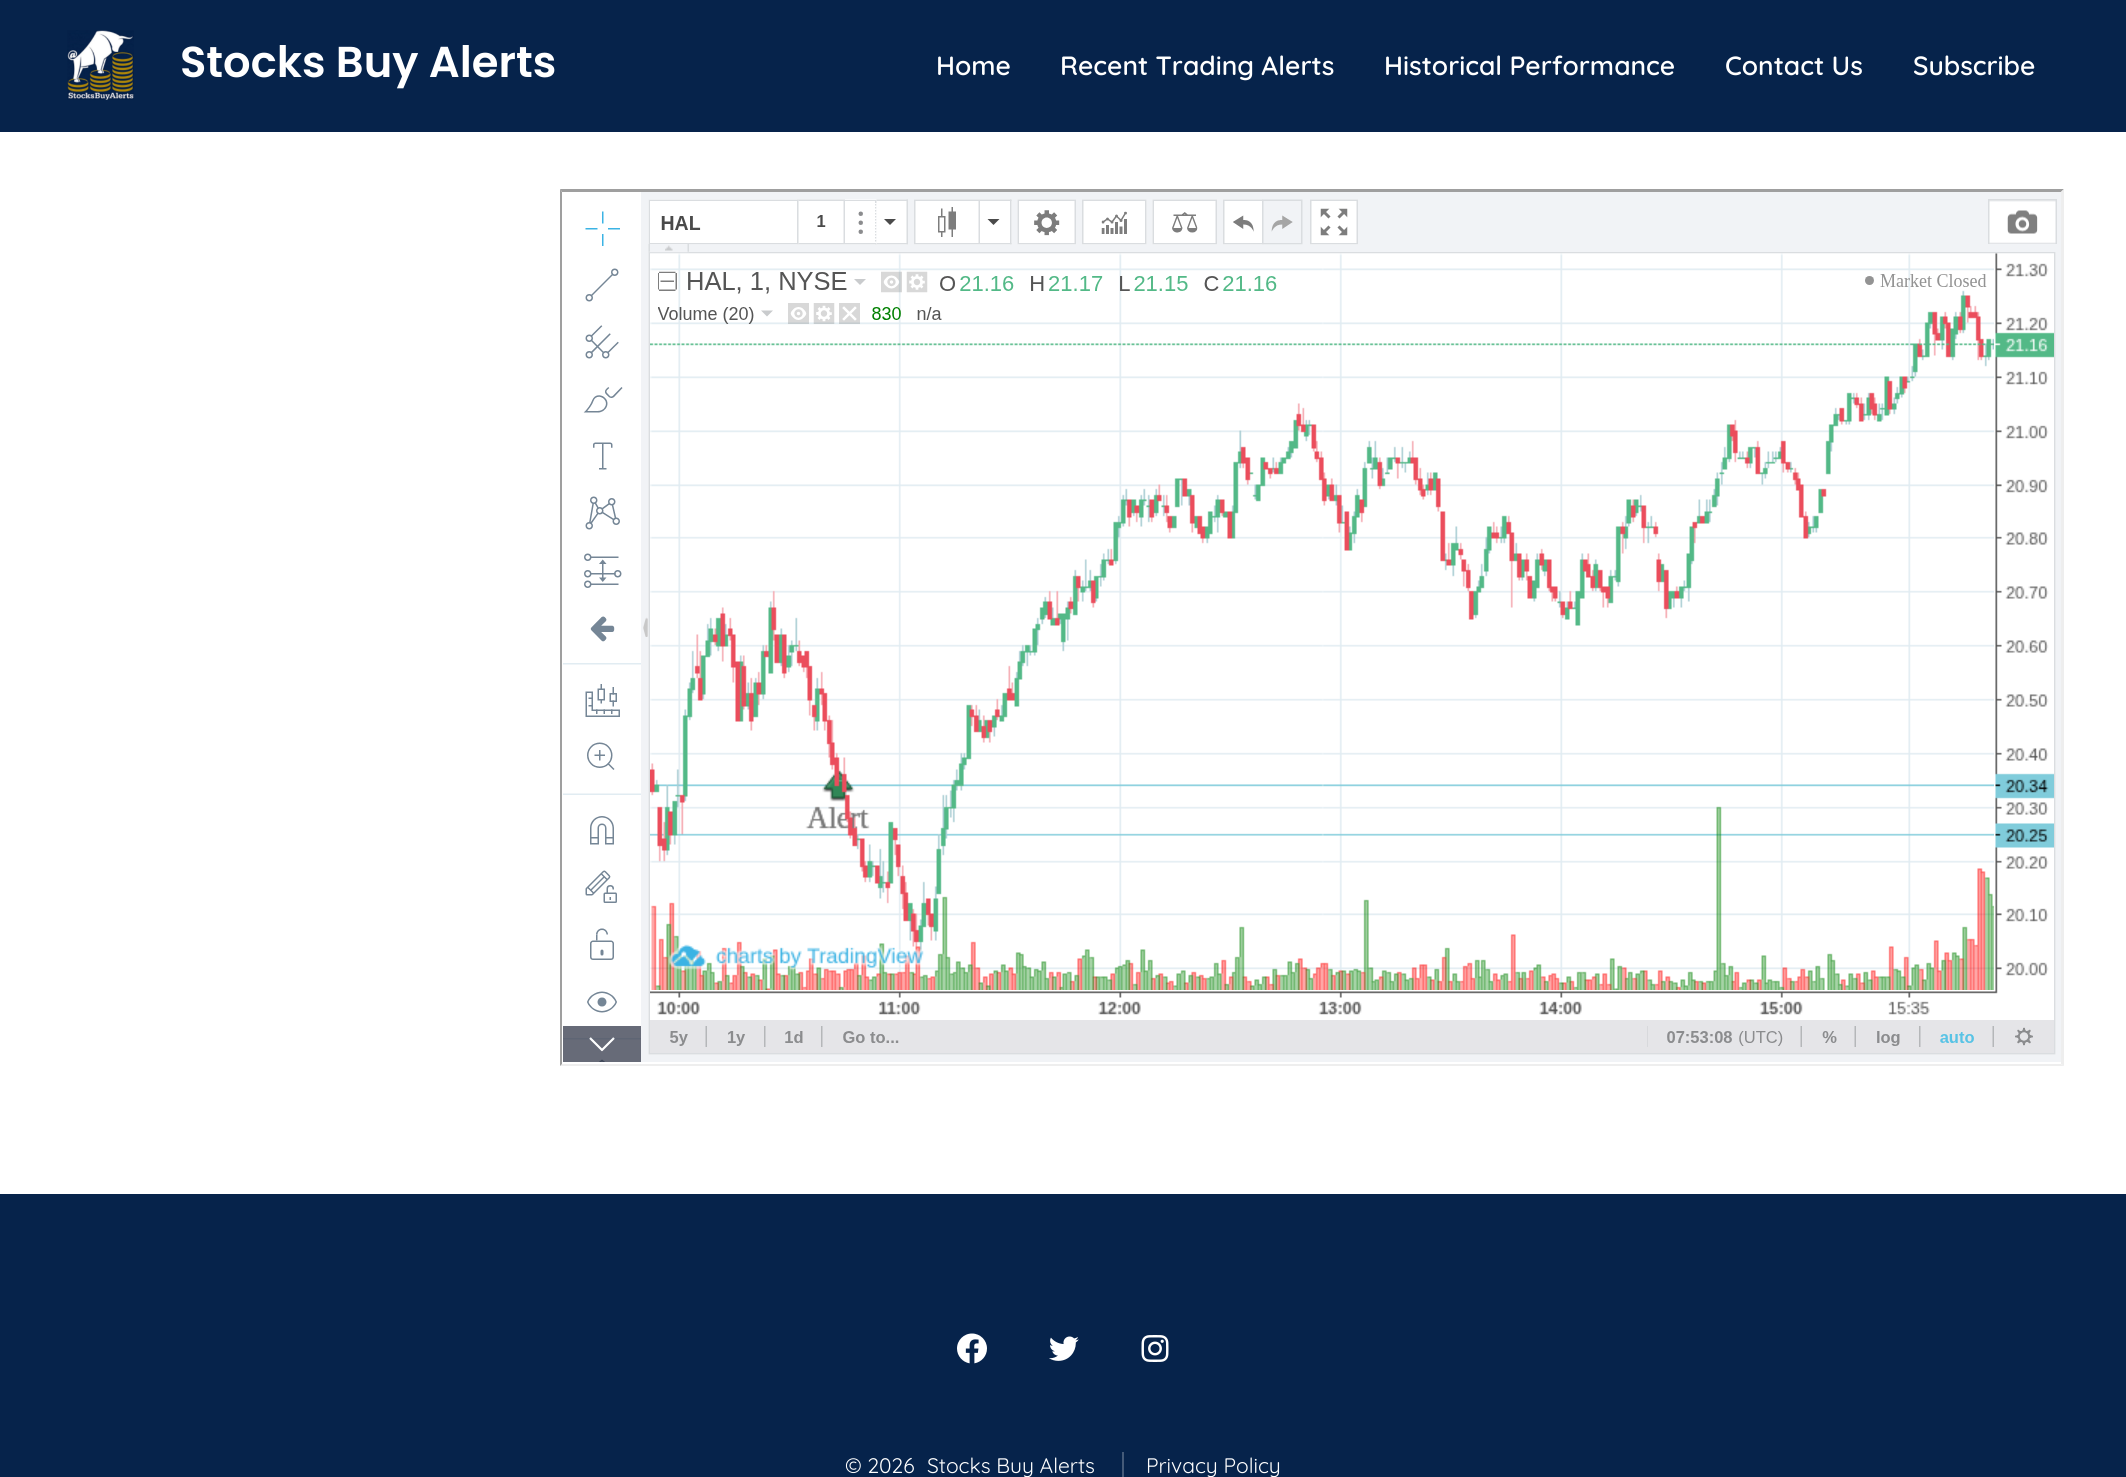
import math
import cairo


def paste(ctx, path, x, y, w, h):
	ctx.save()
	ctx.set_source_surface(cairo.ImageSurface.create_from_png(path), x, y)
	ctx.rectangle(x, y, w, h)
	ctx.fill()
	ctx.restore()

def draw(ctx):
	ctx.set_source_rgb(1, 1, 1)
	ctx.paint()
	ctx.set_source_rgb(0.024, 0.137, 0.294)
	ctx.rectangle(0, 0, 2126, 132)
	ctx.fill()
	paste(ctx, 'media/1.png', 67, 30, 67, 70)
	ctx.select_font_face('Poppins SemiBold')
	ctx.set_font_size(43.25)
	ctx.set_source_rgb(1, 1, 1)
	ctx.move_to(180, 77)
	ctx.show_text('Stocks Buy Alerts')
	ctx.select_font_face('Quicksand SemiBold')
	ctx.set_font_size(26.4)
	for x, y, s in [
		(936, 75, 'Home'),
		(1060, 75, 'Recent Trading Alerts'),
		(1384, 75, 'Historical Performance'),
		(1725, 75, 'Contact Us'),
		(1913, 75, 'Subscribe'),
	]:
		ctx.move_to(x, y)
		ctx.show_text(s)
	ctx.set_source_rgb(0.624, 0.624, 0.624)
	ctx.new_path()
	ctx.move_to(560, 189)
	ctx.line_to(2064, 189)
	ctx.line_to(2061, 192)
	ctx.line_to(562, 192)
	ctx.close_path()
	ctx.fill()
	ctx.set_source_rgb(0.933, 0.933, 0.933)
	ctx.new_path()
	ctx.move_to(2064, 189)
	ctx.line_to(2064, 1066)
	ctx.line_to(2061, 1064)
	ctx.line_to(2061, 192)
	ctx.close_path()
	ctx.fill()
	ctx.new_path()
	ctx.move_to(2064, 1066)
	ctx.line_to(560, 1066)
	ctx.line_to(562, 1064)
	ctx.line_to(2061, 1064)
	ctx.close_path()
	ctx.fill()
	ctx.set_source_rgb(0.624, 0.624, 0.624)
	ctx.new_path()
	ctx.move_to(560, 1066)
	ctx.line_to(560, 189)
	ctx.line_to(562, 192)
	ctx.line_to(562, 1064)
	ctx.close_path()
	ctx.fill()
	paste(ctx, 'media/2.png', 563, 192, 1498, 870)
	ctx.set_source_rgb(0.024, 0.137, 0.294)
	ctx.rectangle(0, 1194, 2126, 283)
	ctx.fill()
	paste(ctx, 'media/3.png', 957, 1333, 30, 31)
	paste(ctx, 'media/4.png', 1049, 1336, 30, 25)
	paste(ctx, 'media/5.png', 1141, 1335, 28, 27)
	ctx.select_font_face('Quicksand')
	ctx.set_font_size(21)
	ctx.set_source_rgb(1, 1, 1)
	ctx.move_to(845, 1473)
	ctx.show_text('© 2026')
	ctx.move_to(927, 1473)
	ctx.show_text('Stocks Buy Alerts')
	ctx.set_source_rgb(0.267, 0.353, 0.471)
	ctx.rectangle(1122, 1452, 2, 25)
	ctx.fill()
	ctx.set_source_rgb(1, 1, 1)
	ctx.move_to(1146, 1473)
	ctx.show_text('Privacy Policy')


surface = cairo.ImageSurface(cairo.FORMAT_RGB24, 2126, 1477)
ctx = cairo.Context(surface)
options = cairo.FontOptions()
options.set_hint_metrics(cairo.HINT_METRICS_OFF)
options.set_hint_style(cairo.HINT_STYLE_NONE)
ctx.set_font_options(options)
ctx.set_miter_limit(4)
draw(ctx)
surface.write_to_png('image.png')
